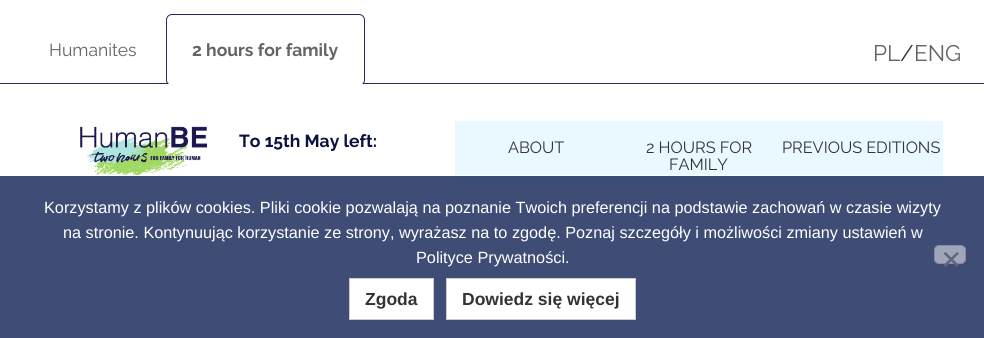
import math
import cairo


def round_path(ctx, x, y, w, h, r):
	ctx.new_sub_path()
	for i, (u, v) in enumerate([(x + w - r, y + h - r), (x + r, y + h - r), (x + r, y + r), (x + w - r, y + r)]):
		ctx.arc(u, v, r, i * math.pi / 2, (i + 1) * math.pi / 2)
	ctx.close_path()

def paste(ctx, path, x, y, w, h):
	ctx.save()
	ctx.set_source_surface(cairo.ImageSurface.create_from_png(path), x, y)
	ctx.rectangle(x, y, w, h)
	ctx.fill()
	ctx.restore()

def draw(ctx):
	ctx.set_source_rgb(1, 1, 1)
	ctx.paint()
	ctx.set_source_rgb(0.173, 0.137, 0.388)
	ctx.rectangle(0, 83, 984, 1)
	ctx.fill()
	ctx.select_font_face('Raleway')
	ctx.set_font_size(17.5)
	ctx.set_source_rgb(0.392, 0.392, 0.392)
	ctx.move_to(49, 56)
	ctx.show_text('Humanites')
	ctx.set_source_rgb(1, 1, 1)
	round_path(ctx, 166.5, 14.5, 198, 71, 5.5)
	ctx.fill_preserve()
	ctx.set_source_rgb(0.173, 0.137, 0.388)
	ctx.set_line_width(1)
	ctx.stroke()
	ctx.select_font_face('Raleway', cairo.FONT_SLANT_NORMAL, cairo.FONT_WEIGHT_BOLD)
	ctx.set_source_rgb(0.392, 0.392, 0.392)
	ctx.move_to(192, 56)
	ctx.show_text('2 hours for family')
	ctx.select_font_face('Raleway')
	ctx.set_font_size(22.5)
	ctx.move_to(873, 61)
	ctx.show_text('PL')
	ctx.set_source_rgb(0.2, 0.2, 0.2)
	ctx.move_to(900, 61)
	ctx.show_text('/')
	ctx.set_source_rgb(0.392, 0.392, 0.392)
	ctx.move_to(914, 61)
	ctx.show_text('ENG')
	ctx.set_source_rgb(1, 1, 1)
	ctx.rectangle(167, 84, 197, 2)
	ctx.fill()
	paste(ctx, 'media/1.png', 80, 126, 128, 51)
	ctx.select_font_face('Raleway', cairo.FONT_SLANT_NORMAL, cairo.FONT_WEIGHT_BOLD)
	ctx.set_font_size(17.5)
	ctx.set_source_rgb(0.043, 0.071, 0.255)
	ctx.move_to(239, 147)
	ctx.show_text('To 15th May left:')
	ctx.set_source_rgb(0.914, 0.973, 1)
	ctx.rectangle(455, 121, 488, 64)
	ctx.fill()
	ctx.select_font_face('Raleway')
	ctx.set_font_size(16.25)
	ctx.set_source_rgb(0.2, 0.2, 0.2)
	for x, y, s in [
		(508, 153, 'ABOUT'),
		(646, 153, '2 HOURS FOR'),
		(669, 170, 'FAMILY'),
		(782, 153, 'PREVIOUS EDITIONS'),
	]:
		ctx.move_to(x, y)
		ctx.show_text(s)
	ctx.set_source_rgba(0.063, 0.129, 0.329, 0.8)
	ctx.rectangle(0, 176, 984, 162)
	ctx.fill()
	ctx.set_source_rgb(1, 1, 1)
	ctx.rectangle(97, 175, 846, 1)
	ctx.fill()
	ctx.select_font_face('Liberation Sans')
	for x, y, s in [
		(44, 213, 'Korzystamy z plików cookies. Pliki cookie pozwalają na poznanie Twoich preferencji na podstawie zachowań w czasie wizyty'),
		(63, 238, 'na stronie. Kontynuując korzystanie ze strony, wyrażasz na to zgodę. Poznaj szczegóły i możliwości zmiany ustawień w'),
		(416, 263, 'Polityce Prywatności.'),
	]:
		ctx.move_to(x, y)
		ctx.show_text(s)
	ctx.set_source_rgb(0.624, 0.651, 0.733)
	round_path(ctx, 934.5, 245.5, 31, 18, 4.5)
	ctx.fill_preserve()
	ctx.set_source_rgb(0.525, 0.553, 0.631)
	ctx.stroke()
	ctx.set_source_rgb(0.376, 0.404, 0.482)
	ctx.new_path()
	ctx.move_to(957, 252)
	ctx.line_to(959, 253.5)
	ctx.line_to(945.5, 267)
	ctx.line_to(943.5, 265)
	ctx.close_path()
	ctx.fill()
	ctx.new_path()
	ctx.move_to(943.5, 253.5)
	ctx.line_to(945.5, 252)
	ctx.line_to(959, 265)
	ctx.line_to(957, 267)
	ctx.close_path()
	ctx.fill()
	ctx.set_source_rgb(1, 1, 1)
	ctx.rectangle(349.5, 278.5, 84, 41)
	ctx.fill_preserve()
	ctx.set_source_rgb(0.8, 0.8, 0.8)
	ctx.stroke()
	ctx.select_font_face('Liberation Sans', cairo.FONT_SLANT_NORMAL, cairo.FONT_WEIGHT_BOLD)
	ctx.set_font_size(17.5)
	ctx.set_source_rgb(0.2, 0.2, 0.2)
	ctx.move_to(365, 305)
	ctx.show_text('Zgoda')
	ctx.set_source_rgb(1, 1, 1)
	ctx.rectangle(446.5, 278.5, 189, 41)
	ctx.fill_preserve()
	ctx.set_source_rgb(0.8, 0.8, 0.8)
	ctx.stroke()
	ctx.set_source_rgb(0.2, 0.2, 0.2)
	ctx.move_to(462, 305)
	ctx.show_text('Dowiedz się więcej')


surface = cairo.ImageSurface(cairo.FORMAT_RGB24, 984, 338)
ctx = cairo.Context(surface)
options = cairo.FontOptions()
options.set_hint_metrics(cairo.HINT_METRICS_OFF)
options.set_hint_style(cairo.HINT_STYLE_NONE)
ctx.set_font_options(options)
ctx.set_miter_limit(4)
draw(ctx)
surface.write_to_png('image.png')
